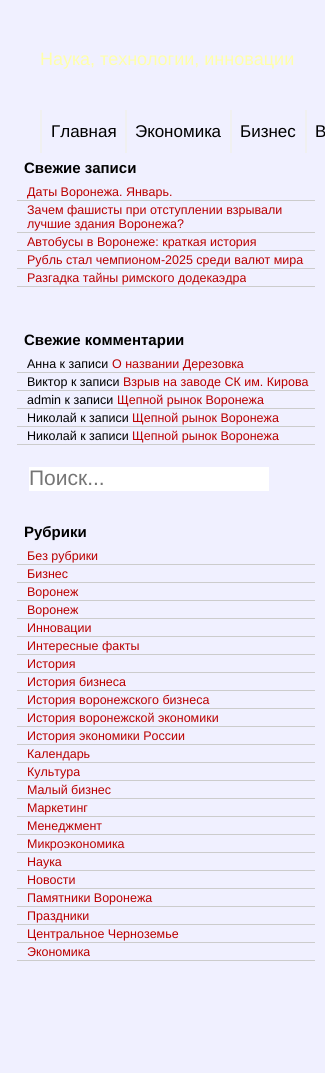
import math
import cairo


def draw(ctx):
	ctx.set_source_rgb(0.941, 0.941, 1)
	ctx.paint()
	ctx.select_font_face('Liberation Sans')
	ctx.set_font_size(18)
	ctx.set_source_rgb(1, 1, 0.667)
	ctx.move_to(40, 65)
	ctx.show_text('Наука, технологии, инновации')
	ctx.set_source_rgb(0.941, 0.941, 0.941)
	ctx.rectangle(40, 110, 2, 43)
	ctx.fill()
	ctx.rectangle(125, 110, 2, 43)
	ctx.fill()
	ctx.set_font_size(17)
	ctx.set_source_rgb(0, 0, 0)
	ctx.move_to(51, 137)
	ctx.show_text('Главная')
	ctx.set_source_rgb(0.941, 0.941, 0.941)
	ctx.rectangle(230, 110, 2, 43)
	ctx.fill()
	ctx.set_source_rgb(0, 0, 0)
	ctx.move_to(135, 137)
	ctx.show_text('Экономика')
	ctx.set_source_rgb(0.941, 0.941, 0.941)
	ctx.rectangle(305, 110, 2, 43)
	ctx.fill()
	ctx.set_source_rgb(0, 0, 0)
	ctx.move_to(240, 137)
	ctx.show_text('Бизнес')
	ctx.move_to(315, 137)
	ctx.show_text('В')
	ctx.select_font_face('Liberation Sans', cairo.FONT_SLANT_NORMAL, cairo.FONT_WEIGHT_BOLD)
	ctx.set_font_size(15)
	ctx.move_to(24, 173)
	ctx.show_text('Свежие записи')
	ctx.set_source_rgb(0.8, 0.8, 0.8)
	ctx.rectangle(17, 200, 298, 1)
	ctx.fill()
	ctx.select_font_face('Liberation Sans')
	ctx.set_font_size(12.5)
	ctx.set_source_rgb(0.733, 0, 0)
	ctx.move_to(27, 196)
	ctx.show_text('Даты Воронежа. Январь.')
	ctx.set_source_rgb(0.8, 0.8, 0.8)
	ctx.rectangle(17, 232, 298, 1)
	ctx.fill()
	ctx.set_source_rgb(0.733, 0, 0)
	ctx.move_to(27, 214)
	ctx.show_text('Зачем фашисты при отступлении взрывали')
	ctx.move_to(27, 228)
	ctx.show_text('лучшие здания Воронежа?')
	ctx.set_source_rgb(0.8, 0.8, 0.8)
	ctx.rectangle(17, 250, 298, 1)
	ctx.fill()
	ctx.set_source_rgb(0.733, 0, 0)
	ctx.move_to(27, 246)
	ctx.show_text('Автобусы в Воронеже: краткая история')
	ctx.set_source_rgb(0.8, 0.8, 0.8)
	ctx.rectangle(17, 268, 298, 1)
	ctx.fill()
	ctx.set_source_rgb(0.733, 0, 0)
	ctx.move_to(27, 264)
	ctx.show_text('Рубль стал чемпионом-2025 среди валют мира')
	ctx.set_source_rgb(0.8, 0.8, 0.8)
	ctx.rectangle(17, 286, 298, 1)
	ctx.fill()
	ctx.set_source_rgb(0.733, 0, 0)
	ctx.move_to(27, 282)
	ctx.show_text('Разгадка тайны римского додекаэдра')
	ctx.select_font_face('Liberation Sans', cairo.FONT_SLANT_NORMAL, cairo.FONT_WEIGHT_BOLD)
	ctx.set_font_size(15)
	ctx.set_source_rgb(0, 0, 0)
	ctx.move_to(24, 345)
	ctx.show_text('Свежие комментарии')
	ctx.set_source_rgb(0.8, 0.8, 0.8)
	ctx.rectangle(17, 372, 298, 1)
	ctx.fill()
	ctx.select_font_face('Liberation Sans')
	ctx.set_font_size(12.5)
	ctx.set_source_rgb(0, 0, 0)
	ctx.move_to(27, 368)
	ctx.show_text('Анна к записи')
	ctx.set_source_rgb(0.733, 0, 0)
	ctx.move_to(112, 368)
	ctx.show_text('О названии Дерезовка')
	ctx.set_source_rgb(0.8, 0.8, 0.8)
	ctx.rectangle(17, 390, 298, 1)
	ctx.fill()
	ctx.set_source_rgb(0, 0, 0)
	ctx.move_to(27, 386)
	ctx.show_text('Виктор к записи')
	ctx.set_source_rgb(0.733, 0, 0)
	ctx.move_to(123, 386)
	ctx.show_text('Взрыв на заводе СК им. Кирова')
	ctx.set_source_rgb(0.8, 0.8, 0.8)
	ctx.rectangle(17, 408, 298, 1)
	ctx.fill()
	ctx.set_source_rgb(0, 0, 0)
	ctx.move_to(27, 404)
	ctx.show_text('admin к записи')
	ctx.set_source_rgb(0.733, 0, 0)
	ctx.move_to(117, 404)
	ctx.show_text('Щепной рынок Воронежа')
	ctx.set_source_rgb(0.8, 0.8, 0.8)
	ctx.rectangle(17, 426, 298, 1)
	ctx.fill()
	ctx.set_source_rgb(0, 0, 0)
	ctx.move_to(27, 422)
	ctx.show_text('Николай к записи')
	ctx.set_source_rgb(0.733, 0, 0)
	ctx.move_to(132, 422)
	ctx.show_text('Щепной рынок Воронежа')
	ctx.set_source_rgb(0.8, 0.8, 0.8)
	ctx.rectangle(17, 444, 298, 1)
	ctx.fill()
	ctx.set_source_rgb(0, 0, 0)
	ctx.move_to(27, 440)
	ctx.show_text('Николай к записи')
	ctx.set_source_rgb(0.733, 0, 0)
	ctx.move_to(132, 440)
	ctx.show_text('Щепной рынок Воронежа')
	ctx.set_source_rgb(1, 1, 1)
	ctx.rectangle(29, 467, 240, 24)
	ctx.fill()
	ctx.set_font_size(21)
	ctx.set_source_rgb(0.459, 0.459, 0.459)
	ctx.move_to(29, 485)
	ctx.show_text('Поиск...')
	ctx.select_font_face('Liberation Sans', cairo.FONT_SLANT_NORMAL, cairo.FONT_WEIGHT_BOLD)
	ctx.set_font_size(15)
	ctx.set_source_rgb(0, 0, 0)
	ctx.move_to(24, 537)
	ctx.show_text('Рубрики')
	ctx.set_source_rgb(0.8, 0.8, 0.8)
	ctx.rectangle(17, 564, 298, 1)
	ctx.fill()
	ctx.select_font_face('Liberation Sans')
	ctx.set_font_size(12.5)
	ctx.set_source_rgb(0.733, 0, 0)
	ctx.move_to(27, 560)
	ctx.show_text('Без рубрики')
	ctx.set_source_rgb(0.8, 0.8, 0.8)
	ctx.rectangle(17, 582, 298, 1)
	ctx.fill()
	ctx.set_source_rgb(0.733, 0, 0)
	ctx.move_to(27, 578)
	ctx.show_text('Бизнес')
	ctx.set_source_rgb(0.8, 0.8, 0.8)
	ctx.rectangle(17, 600, 298, 1)
	ctx.fill()
	ctx.set_source_rgb(0.733, 0, 0)
	ctx.move_to(27, 596)
	ctx.show_text('Воронеж')
	ctx.set_source_rgb(0.8, 0.8, 0.8)
	ctx.rectangle(17, 618, 298, 1)
	ctx.fill()
	ctx.set_source_rgb(0.733, 0, 0)
	ctx.move_to(27, 614)
	ctx.show_text('Воронеж')
	ctx.set_source_rgb(0.8, 0.8, 0.8)
	ctx.rectangle(17, 636, 298, 1)
	ctx.fill()
	ctx.set_source_rgb(0.733, 0, 0)
	ctx.move_to(27, 632)
	ctx.show_text('Инновации')
	ctx.set_source_rgb(0.8, 0.8, 0.8)
	ctx.rectangle(17, 654, 298, 1)
	ctx.fill()
	ctx.set_source_rgb(0.733, 0, 0)
	ctx.move_to(27, 650)
	ctx.show_text('Интересные факты')
	ctx.set_source_rgb(0.8, 0.8, 0.8)
	ctx.rectangle(17, 672, 298, 1)
	ctx.fill()
	ctx.set_source_rgb(0.733, 0, 0)
	ctx.move_to(27, 668)
	ctx.show_text('История')
	ctx.set_source_rgb(0.8, 0.8, 0.8)
	ctx.rectangle(17, 690, 298, 1)
	ctx.fill()
	ctx.set_source_rgb(0.733, 0, 0)
	ctx.move_to(27, 686)
	ctx.show_text('История бизнеса')
	ctx.set_source_rgb(0.8, 0.8, 0.8)
	ctx.rectangle(17, 708, 298, 1)
	ctx.fill()
	ctx.set_source_rgb(0.733, 0, 0)
	ctx.move_to(27, 704)
	ctx.show_text('История воронежского бизнеса')
	ctx.set_source_rgb(0.8, 0.8, 0.8)
	ctx.rectangle(17, 726, 298, 1)
	ctx.fill()
	ctx.set_source_rgb(0.733, 0, 0)
	ctx.move_to(27, 722)
	ctx.show_text('История воронежской экономики')
	ctx.set_source_rgb(0.8, 0.8, 0.8)
	ctx.rectangle(17, 744, 298, 1)
	ctx.fill()
	ctx.set_source_rgb(0.733, 0, 0)
	ctx.move_to(27, 740)
	ctx.show_text('История экономики России')
	ctx.set_source_rgb(0.8, 0.8, 0.8)
	ctx.rectangle(17, 762, 298, 1)
	ctx.fill()
	ctx.set_source_rgb(0.733, 0, 0)
	ctx.move_to(27, 758)
	ctx.show_text('Календарь')
	ctx.set_source_rgb(0.8, 0.8, 0.8)
	ctx.rectangle(17, 780, 298, 1)
	ctx.fill()
	ctx.set_source_rgb(0.733, 0, 0)
	ctx.move_to(27, 776)
	ctx.show_text('Культура')
	ctx.set_source_rgb(0.8, 0.8, 0.8)
	ctx.rectangle(17, 798, 298, 1)
	ctx.fill()
	ctx.set_source_rgb(0.733, 0, 0)
	ctx.move_to(27, 794)
	ctx.show_text('Малый бизнес')
	ctx.set_source_rgb(0.8, 0.8, 0.8)
	ctx.rectangle(17, 816, 298, 1)
	ctx.fill()
	ctx.set_source_rgb(0.733, 0, 0)
	ctx.move_to(27, 812)
	ctx.show_text('Маркетинг')
	ctx.set_source_rgb(0.8, 0.8, 0.8)
	ctx.rectangle(17, 834, 298, 1)
	ctx.fill()
	ctx.set_source_rgb(0.733, 0, 0)
	ctx.move_to(27, 830)
	ctx.show_text('Менеджмент')
	ctx.set_source_rgb(0.8, 0.8, 0.8)
	ctx.rectangle(17, 852, 298, 1)
	ctx.fill()
	ctx.set_source_rgb(0.733, 0, 0)
	ctx.move_to(27, 848)
	ctx.show_text('Микроэкономика')
	ctx.set_source_rgb(0.8, 0.8, 0.8)
	ctx.rectangle(17, 870, 298, 1)
	ctx.fill()
	ctx.set_source_rgb(0.733, 0, 0)
	ctx.move_to(27, 866)
	ctx.show_text('Наука')
	ctx.set_source_rgb(0.8, 0.8, 0.8)
	ctx.rectangle(17, 888, 298, 1)
	ctx.fill()
	ctx.set_source_rgb(0.733, 0, 0)
	ctx.move_to(27, 884)
	ctx.show_text('Новости')
	ctx.set_source_rgb(0.8, 0.8, 0.8)
	ctx.rectangle(17, 906, 298, 1)
	ctx.fill()
	ctx.set_source_rgb(0.733, 0, 0)
	ctx.move_to(27, 902)
	ctx.show_text('Памятники Воронежа')
	ctx.set_source_rgb(0.8, 0.8, 0.8)
	ctx.rectangle(17, 924, 298, 1)
	ctx.fill()
	ctx.set_source_rgb(0.733, 0, 0)
	ctx.move_to(27, 920)
	ctx.show_text('Праздники')
	ctx.set_source_rgb(0.8, 0.8, 0.8)
	ctx.rectangle(17, 942, 298, 1)
	ctx.fill()
	ctx.set_source_rgb(0.733, 0, 0)
	ctx.move_to(27, 938)
	ctx.show_text('Центральное Черноземье')
	ctx.set_source_rgb(0.8, 0.8, 0.8)
	ctx.rectangle(17, 960, 298, 1)
	ctx.fill()
	ctx.set_source_rgb(0.733, 0, 0)
	ctx.move_to(27, 956)
	ctx.show_text('Экономика')


surface = cairo.ImageSurface(cairo.FORMAT_RGB24, 325, 1073)
ctx = cairo.Context(surface)
options = cairo.FontOptions()
options.set_hint_metrics(cairo.HINT_METRICS_OFF)
options.set_hint_style(cairo.HINT_STYLE_NONE)
ctx.set_font_options(options)
ctx.set_miter_limit(4)
draw(ctx)
surface.write_to_png('image.png')
